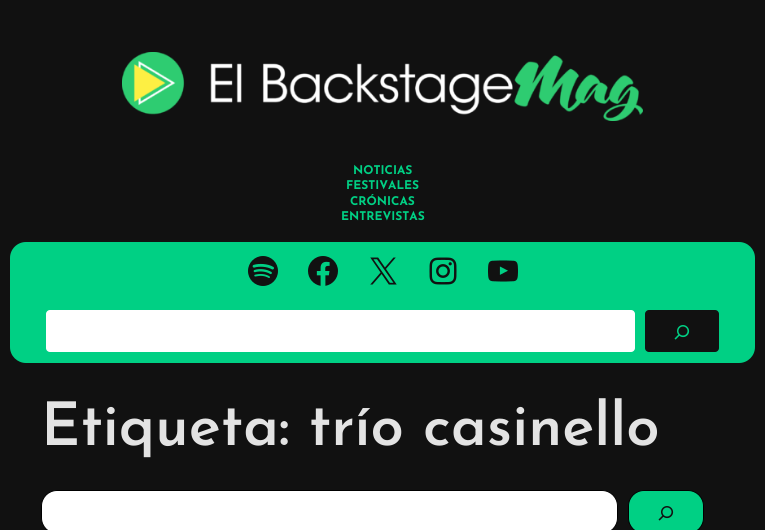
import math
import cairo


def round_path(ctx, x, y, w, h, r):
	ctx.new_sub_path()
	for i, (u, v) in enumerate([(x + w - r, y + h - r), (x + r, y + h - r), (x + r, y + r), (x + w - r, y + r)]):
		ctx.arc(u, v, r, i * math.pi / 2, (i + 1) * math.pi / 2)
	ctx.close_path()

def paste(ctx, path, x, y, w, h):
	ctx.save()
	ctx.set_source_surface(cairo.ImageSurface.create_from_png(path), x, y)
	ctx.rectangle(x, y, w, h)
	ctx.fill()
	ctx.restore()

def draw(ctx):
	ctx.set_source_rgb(0.067, 0.067, 0.067)
	ctx.paint()
	paste(ctx, 'media/1.png', 122, 52, 521, 69)
	ctx.select_font_face('Josefin Sans', cairo.FONT_SLANT_NORMAL, cairo.FONT_WEIGHT_BOLD)
	ctx.set_font_size(12)
	ctx.set_source_rgb(0, 0.816, 0.518)
	for x, y, s in [
		(353, 174, 'NOTICIAS'),
		(346, 189, 'FESTIVALES'),
		(350, 205, 'CRÓNICAS'),
		(341, 220, 'ENTREVISTAS'),
	]:
		ctx.move_to(x, y)
		ctx.show_text(s)
	round_path(ctx, 10, 242, 745, 121, 16)
	ctx.fill()
	paste(ctx, 'media/2.png', 248, 256, 30, 30)
	paste(ctx, 'media/3.png', 308, 256, 30, 30)
	paste(ctx, 'media/4.png', 370, 257, 27, 28)
	paste(ctx, 'media/5.png', 429, 257, 28, 28)
	paste(ctx, 'media/6.png', 488, 260, 30, 22)
	ctx.set_source_rgb(1, 1, 1)
	round_path(ctx, 46, 310, 589, 42, 4)
	ctx.fill()
	ctx.set_source_rgb(0.067, 0.067, 0.067)
	round_path(ctx, 645, 310, 74, 42, 4)
	ctx.fill()
	paste(ctx, 'media/7.png', 674, 325, 16, 15)
	ctx.select_font_face('Josefin Sans SemiBold')
	ctx.set_font_size(60)
	ctx.set_source_rgb(0.89, 0.89, 0.89)
	ctx.move_to(41, 445)
	ctx.show_text('Etiqueta: trío casinello')
	ctx.set_source_rgb(1, 1, 1)
	round_path(ctx, 41.5, 490.5, 576, 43, 15.5)
	ctx.fill_preserve()
	ctx.set_source_rgb(0, 0, 0)
	ctx.set_line_width(1)
	ctx.stroke()
	ctx.set_source_rgb(0, 0.816, 0.518)
	round_path(ctx, 628.5, 490.5, 75, 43, 15.5)
	ctx.fill_preserve()
	ctx.set_source_rgb(0, 0, 0)
	ctx.stroke()
	paste(ctx, 'media/8.png', 658, 506, 16, 15)


surface = cairo.ImageSurface(cairo.FORMAT_RGB24, 765, 530)
ctx = cairo.Context(surface)
options = cairo.FontOptions()
options.set_hint_metrics(cairo.HINT_METRICS_OFF)
options.set_hint_style(cairo.HINT_STYLE_NONE)
ctx.set_font_options(options)
ctx.set_miter_limit(4)
draw(ctx)
surface.write_to_png('image.png')
